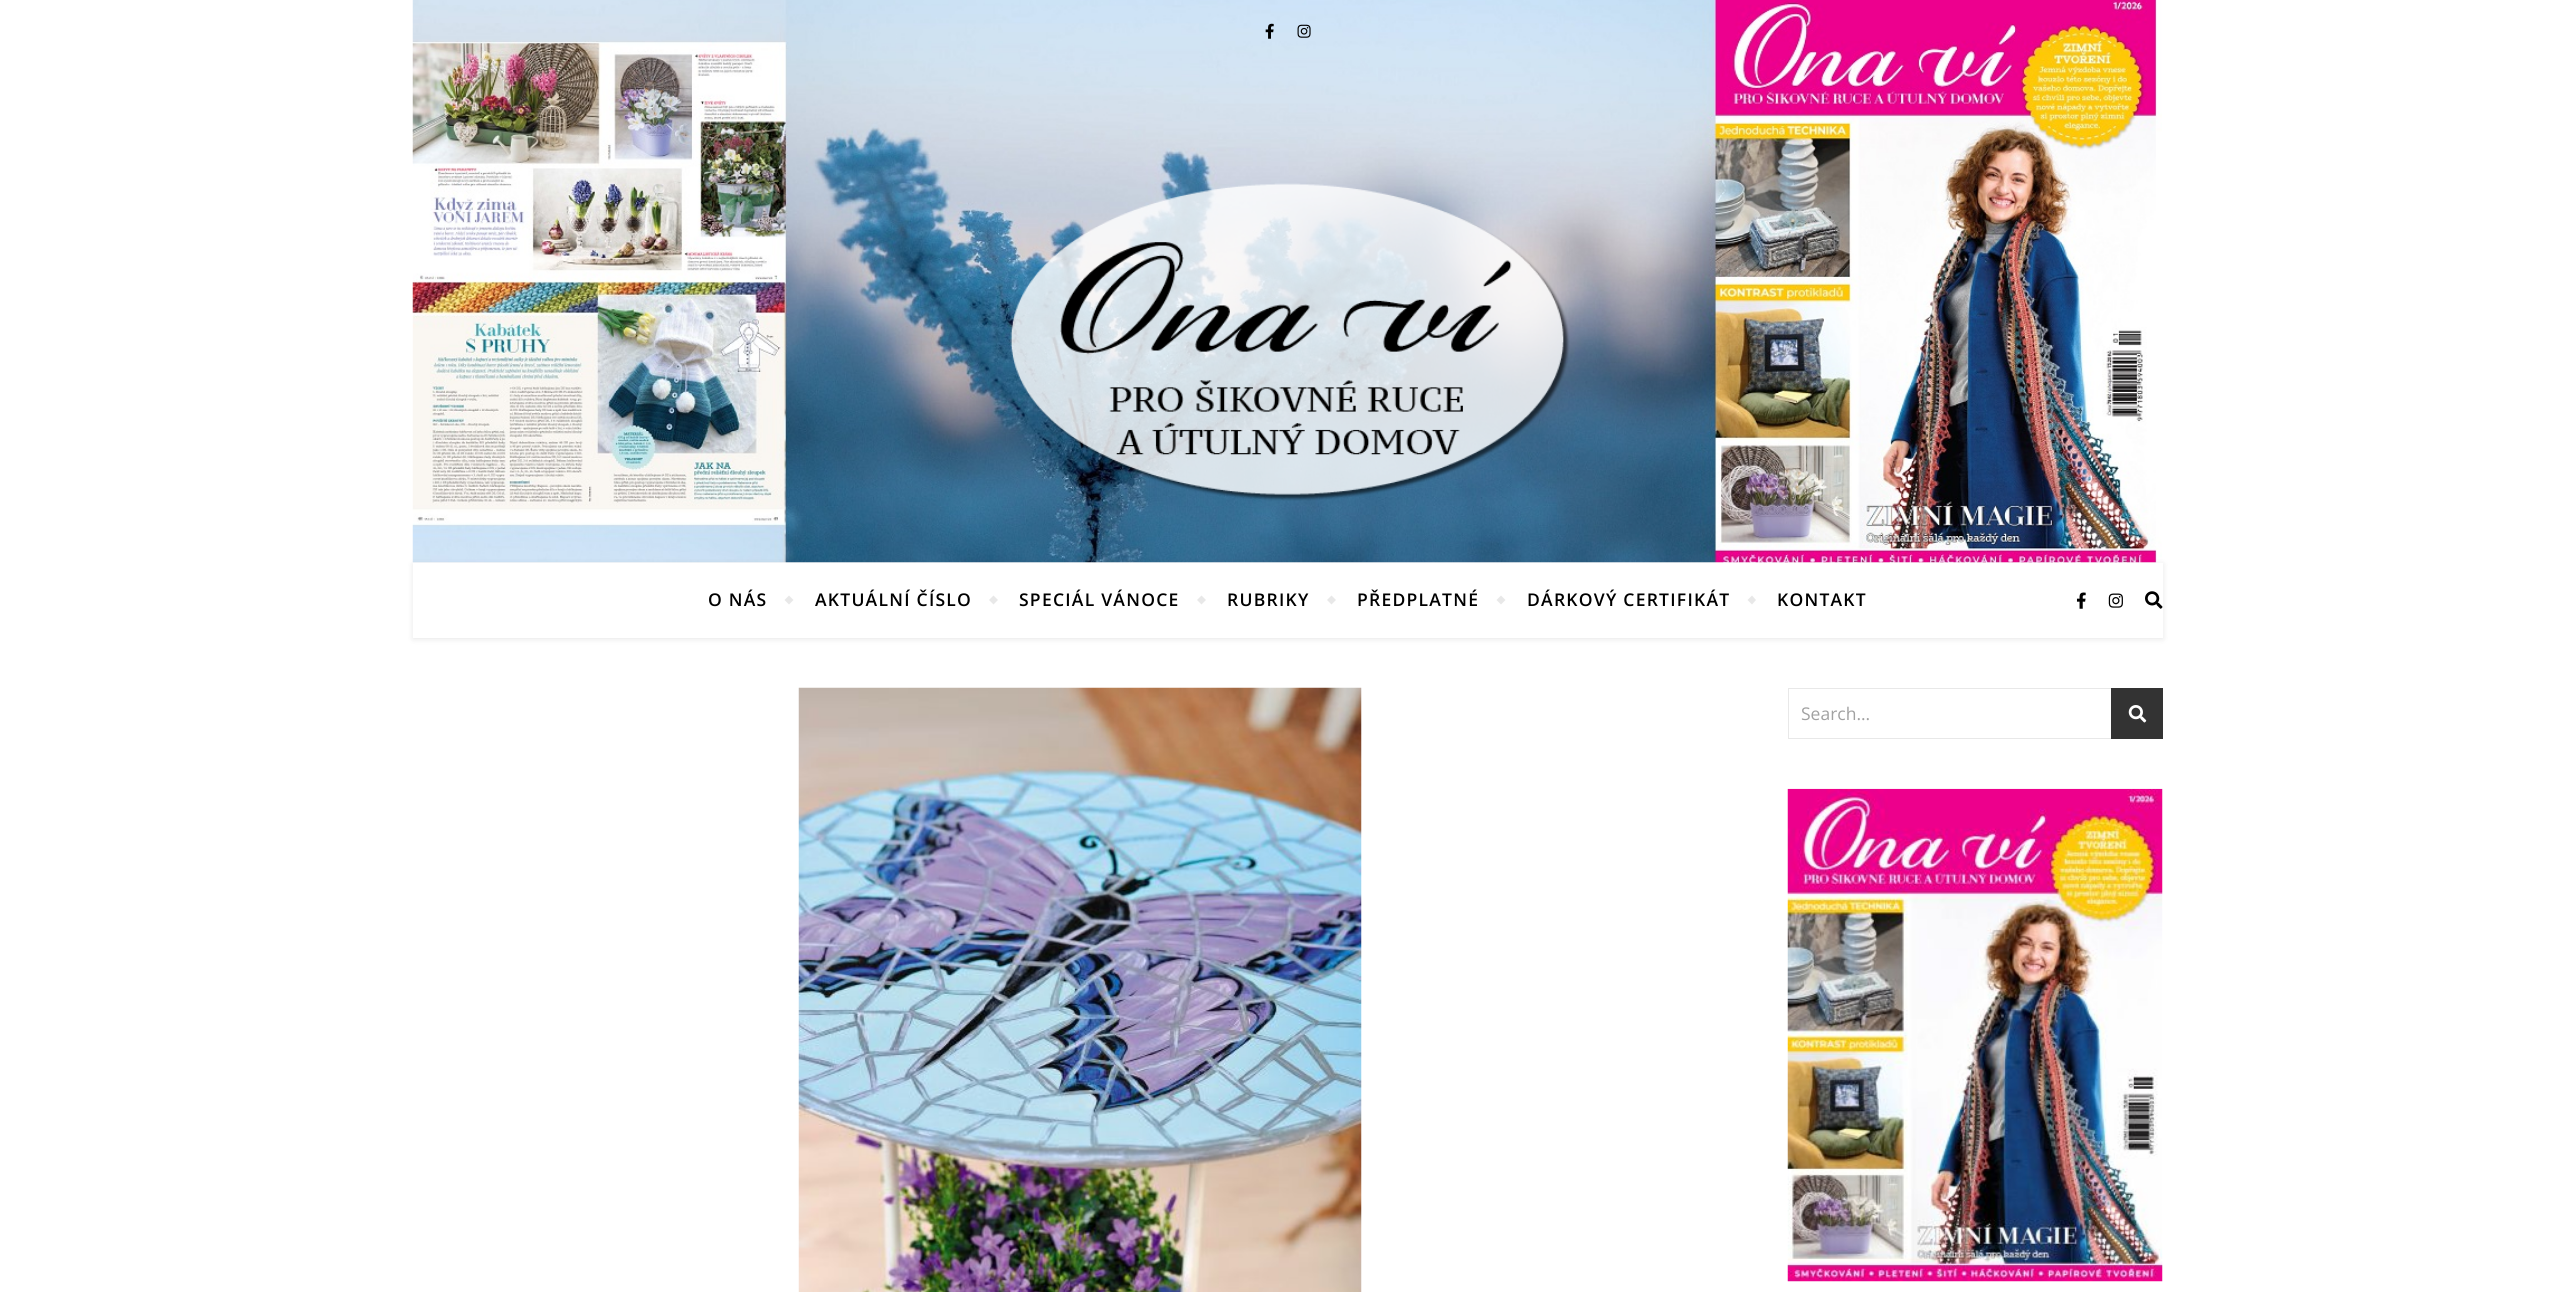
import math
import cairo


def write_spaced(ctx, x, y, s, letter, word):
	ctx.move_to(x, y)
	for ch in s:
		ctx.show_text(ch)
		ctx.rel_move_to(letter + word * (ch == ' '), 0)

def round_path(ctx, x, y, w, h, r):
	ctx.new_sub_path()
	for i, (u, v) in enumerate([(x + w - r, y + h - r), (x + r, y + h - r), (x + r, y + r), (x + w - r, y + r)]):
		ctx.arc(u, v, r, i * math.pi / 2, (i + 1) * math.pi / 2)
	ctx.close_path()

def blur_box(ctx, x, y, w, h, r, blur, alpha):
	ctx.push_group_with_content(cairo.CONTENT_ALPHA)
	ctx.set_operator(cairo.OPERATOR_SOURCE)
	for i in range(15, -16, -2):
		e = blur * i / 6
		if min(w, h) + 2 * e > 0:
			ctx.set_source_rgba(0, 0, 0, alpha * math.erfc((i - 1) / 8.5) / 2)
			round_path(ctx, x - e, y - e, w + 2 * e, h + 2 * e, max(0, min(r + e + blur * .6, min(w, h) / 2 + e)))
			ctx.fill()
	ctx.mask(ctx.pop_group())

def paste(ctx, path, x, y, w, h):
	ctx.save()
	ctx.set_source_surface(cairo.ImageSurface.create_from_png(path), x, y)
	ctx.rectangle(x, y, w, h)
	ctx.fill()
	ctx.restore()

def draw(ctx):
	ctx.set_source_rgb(1, 1, 1)
	ctx.paint()
	paste(ctx, 'media/1.png', 412, 0, 1750, 563)
	paste(ctx, 'media/2.png', 1010, 183, 560, 318)
	paste(ctx, 'media/3.png', 1265, 23, 9, 16)
	paste(ctx, 'media/4.png', 1297, 24, 14, 14)
	ctx.set_source_rgb(0, 0, 0)
	blur_box(ctx, 413, 564, 1750, 75, 0, 3, 0.1)
	ctx.set_source_rgb(1, 1, 1)
	ctx.rectangle(413, 563, 1750, 75)
	ctx.fill()
	ctx.select_font_face('Open Sans SemiBold')
	ctx.set_font_size(17.5)
	ctx.set_source_rgb(0, 0, 0)
	write_spaced(ctx, 708, 606, 'O NÁS', 1.25, 0)
	ctx.set_source_rgb(0.91, 0.91, 0.91)
	ctx.new_path()
	ctx.move_to(784.5, 600)
	ctx.line_to(789, 595.5)
	ctx.line_to(793.5, 600)
	ctx.line_to(789, 604.5)
	ctx.close_path()
	ctx.fill()
	ctx.set_source_rgb(0, 0, 0)
	write_spaced(ctx, 815, 606, 'AKTUÁLNÍ ČÍSLO', 1.25, 0)
	ctx.set_source_rgb(0.91, 0.91, 0.91)
	ctx.new_path()
	ctx.move_to(989, 600)
	ctx.line_to(993.5, 595.5)
	ctx.line_to(998, 600)
	ctx.line_to(993.5, 604.5)
	ctx.close_path()
	ctx.fill()
	ctx.set_source_rgb(0, 0, 0)
	write_spaced(ctx, 1019, 606, 'SPECIÁL VÁNOCE', 1.25, 0)
	ctx.set_source_rgb(0.91, 0.91, 0.91)
	ctx.new_path()
	ctx.move_to(1197, 600)
	ctx.line_to(1201.5, 595.5)
	ctx.line_to(1206, 600)
	ctx.line_to(1201.5, 604.5)
	ctx.close_path()
	ctx.fill()
	ctx.set_source_rgb(0, 0, 0)
	write_spaced(ctx, 1227, 606, 'RUBRIKY', 1.25, 0)
	ctx.set_source_rgb(0.91, 0.91, 0.91)
	ctx.new_path()
	ctx.move_to(1327, 600)
	ctx.line_to(1331.5, 595.5)
	ctx.line_to(1336, 600)
	ctx.line_to(1331.5, 604.5)
	ctx.close_path()
	ctx.fill()
	ctx.set_source_rgb(0, 0, 0)
	write_spaced(ctx, 1357, 606, 'PŘEDPLATNÉ', 1.25, 0)
	ctx.set_source_rgb(0.91, 0.91, 0.91)
	ctx.new_path()
	ctx.move_to(1496.5, 600)
	ctx.line_to(1501, 595.5)
	ctx.line_to(1505.5, 600)
	ctx.line_to(1501, 604.5)
	ctx.close_path()
	ctx.fill()
	ctx.set_source_rgb(0, 0, 0)
	write_spaced(ctx, 1527, 606, 'DÁRKOVÝ CERTIFIKÁT', 1.25, 0)
	ctx.set_source_rgb(0.91, 0.91, 0.91)
	ctx.new_path()
	ctx.move_to(1747.5, 600)
	ctx.line_to(1752, 595.5)
	ctx.line_to(1756, 600)
	ctx.line_to(1752, 604.5)
	ctx.close_path()
	ctx.fill()
	ctx.set_source_rgb(0, 0, 0)
	write_spaced(ctx, 1777, 606, 'KONTAKT', 1.25, 0)
	paste(ctx, 'media/5.png', 2076, 592, 10, 17)
	paste(ctx, 'media/6.png', 2108, 593, 15, 15)
	paste(ctx, 'media/7.png', 2145, 591, 18, 18)
	paste(ctx, 'media/8.png', 798, 687, 564, 605)
	ctx.rectangle(1788.5, 688.5, 374, 50)
	ctx.set_source_rgb(0.91, 0.91, 0.91)
	ctx.set_line_width(1)
	ctx.stroke()
	ctx.select_font_face('Open Sans')
	ctx.set_source_rgb(0.631, 0.631, 0.631)
	ctx.move_to(1801, 720)
	ctx.show_text('Search...')
	ctx.set_source_rgb(0.2, 0.2, 0.2)
	ctx.rectangle(2111, 688, 52, 51)
	ctx.fill()
	paste(ctx, 'media/9.png', 2128, 705, 19, 18)
	paste(ctx, 'media/10.png', 1787, 788, 376, 494)


surface = cairo.ImageSurface(cairo.FORMAT_RGB24, 2574, 1292)
ctx = cairo.Context(surface)
options = cairo.FontOptions()
options.set_hint_metrics(cairo.HINT_METRICS_OFF)
options.set_hint_style(cairo.HINT_STYLE_NONE)
ctx.set_font_options(options)
ctx.set_miter_limit(4)
draw(ctx)
surface.write_to_png('image.png')
